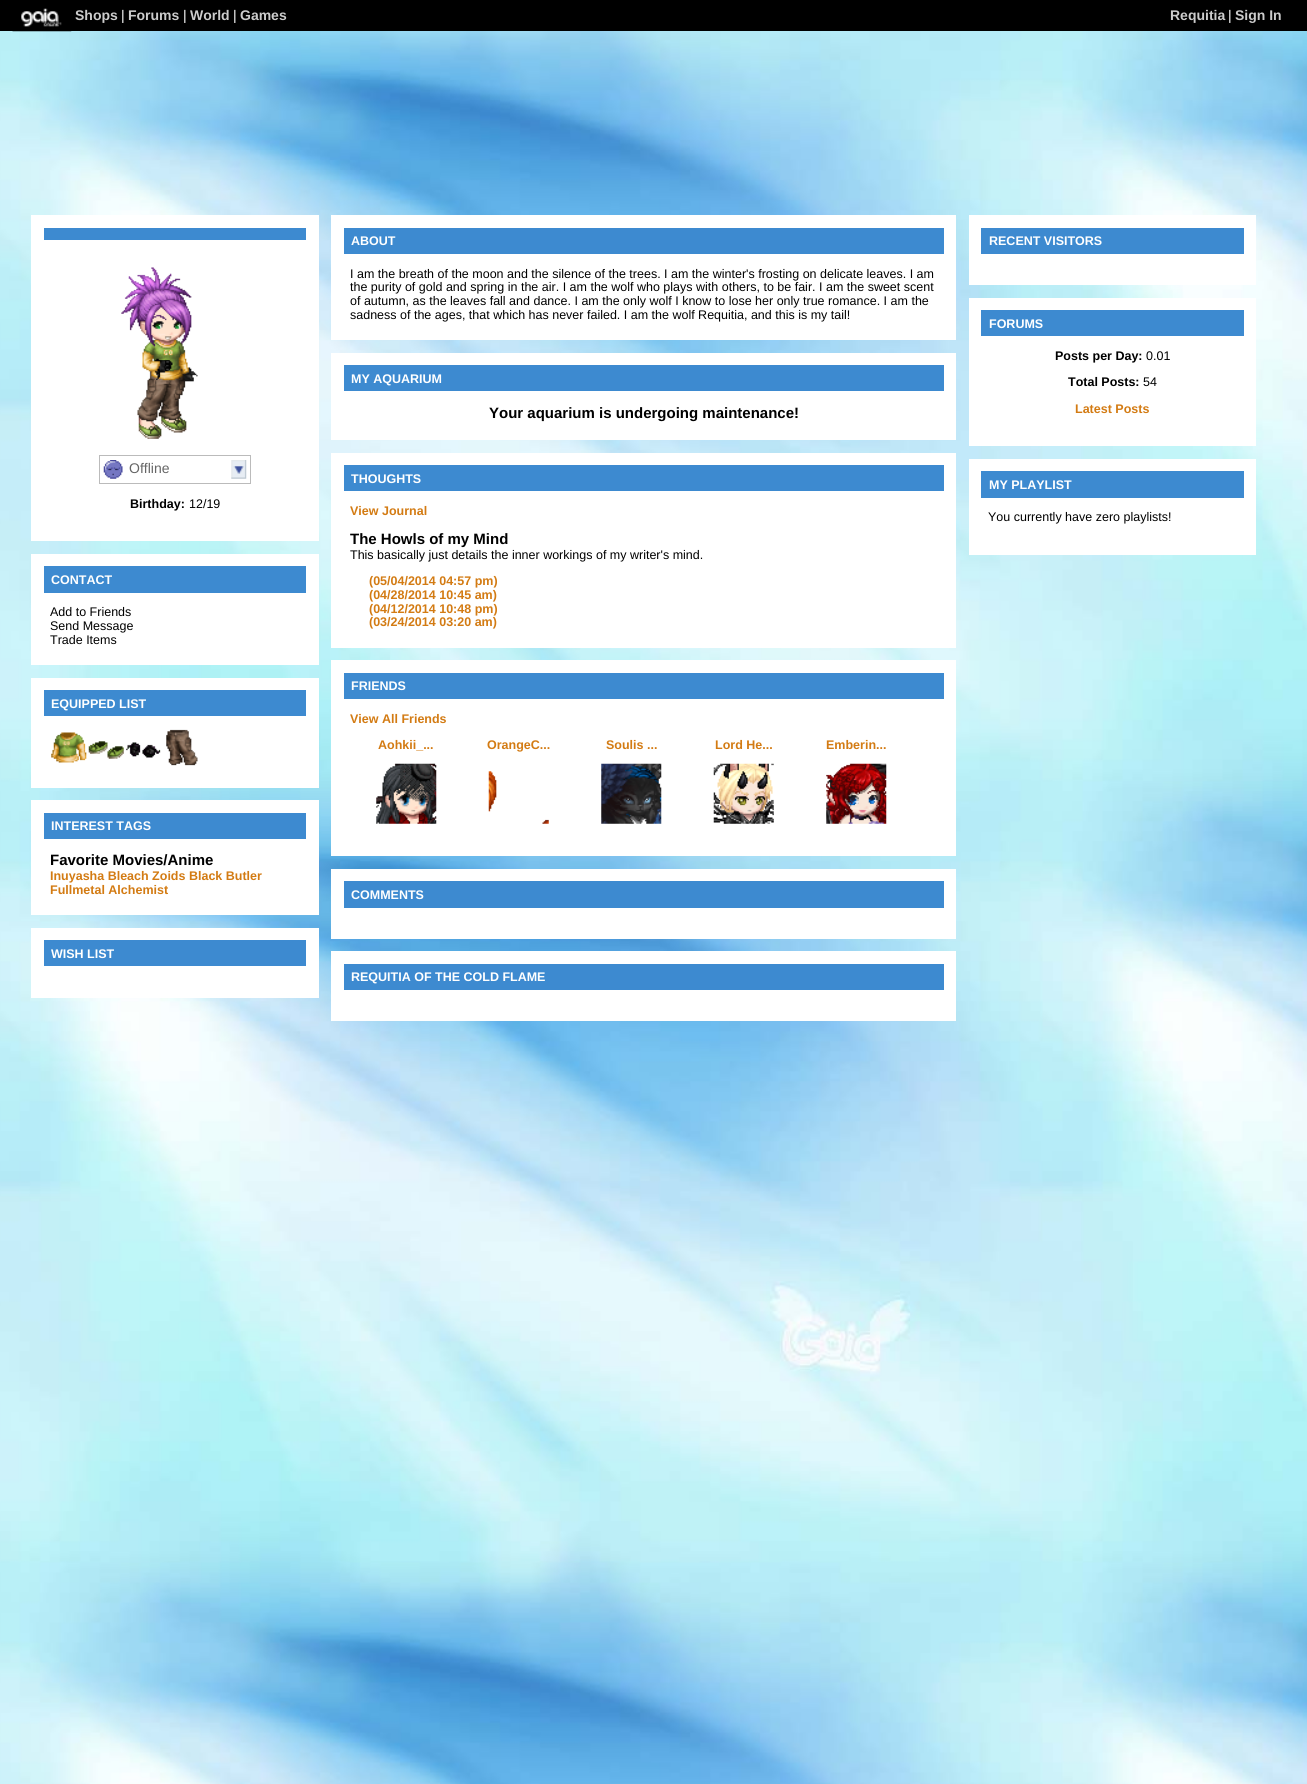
import math
import cairo


def paste(ctx, path, x, y, w, h):
	ctx.save()
	ctx.set_source_surface(cairo.ImageSurface.create_from_png(path), x, y)
	ctx.rectangle(x, y, w, h)
	ctx.fill()
	ctx.restore()

def draw(ctx):
	ctx.set_source_rgb(1, 1, 1)
	ctx.paint()
	paste(ctx, 'media/1.png', 0, 31, 1307, 1753)
	ctx.set_source_rgb(0, 0, 0)
	ctx.rectangle(0, 0, 1307, 31)
	ctx.fill()
	paste(ctx, 'media/2.png', 12, 8, 60, 24)
	ctx.select_font_face('Liberation Sans', cairo.FONT_SLANT_NORMAL, cairo.FONT_WEIGHT_BOLD)
	ctx.set_font_size(14)
	ctx.set_source_rgb(0.8, 0.8, 0.8)
	ctx.move_to(75, 20)
	ctx.show_text('Shops')
	ctx.select_font_face('Liberation Sans')
	ctx.set_source_rgb(1, 1, 1)
	ctx.move_to(121, 20)
	ctx.show_text('|')
	ctx.select_font_face('Liberation Sans', cairo.FONT_SLANT_NORMAL, cairo.FONT_WEIGHT_BOLD)
	ctx.set_source_rgb(0.8, 0.8, 0.8)
	ctx.move_to(128, 20)
	ctx.show_text('Forums')
	ctx.select_font_face('Liberation Sans')
	ctx.set_source_rgb(1, 1, 1)
	ctx.move_to(183, 20)
	ctx.show_text('|')
	ctx.select_font_face('Liberation Sans', cairo.FONT_SLANT_NORMAL, cairo.FONT_WEIGHT_BOLD)
	ctx.set_source_rgb(0.8, 0.8, 0.8)
	ctx.move_to(190, 20)
	ctx.show_text('World')
	ctx.select_font_face('Liberation Sans')
	ctx.set_source_rgb(1, 1, 1)
	ctx.move_to(233, 20)
	ctx.show_text('|')
	ctx.select_font_face('Liberation Sans', cairo.FONT_SLANT_NORMAL, cairo.FONT_WEIGHT_BOLD)
	ctx.set_source_rgb(0.8, 0.8, 0.8)
	ctx.move_to(240, 20)
	ctx.show_text('Games')
	ctx.move_to(1170, 20)
	ctx.show_text('Requitia')
	ctx.select_font_face('Liberation Sans')
	ctx.set_source_rgb(1, 1, 1)
	ctx.move_to(1228, 20)
	ctx.show_text('|')
	ctx.select_font_face('Liberation Sans', cairo.FONT_SLANT_NORMAL, cairo.FONT_WEIGHT_BOLD)
	ctx.set_source_rgb(0.8, 0.8, 0.8)
	ctx.move_to(1235, 20)
	ctx.show_text('Sign In')
	ctx.set_source_rgb(1, 1, 1)
	ctx.rectangle(331, 215, 625, 125)
	ctx.fill()
	ctx.set_source_rgb(0.239, 0.541, 0.816)
	ctx.rectangle(344, 228, 600, 26)
	ctx.fill()
	ctx.set_font_size(12.5)
	ctx.set_source_rgb(1, 1, 1)
	ctx.move_to(351, 245)
	ctx.show_text('ABOUT')
	ctx.select_font_face('Liberation Sans')
	ctx.set_source_rgb(0, 0, 0)
	for x, y, s in [
		(350, 278, 'I am the breath of the moon and the silence of the trees. I am the winter\'s frosting on delicate leaves. I am'),
		(350, 291, 'the purity of gold and spring in the air. I am the wolf who plays with others, to be fair. I am the sweet scent'),
		(350, 305, 'of autumn, as the leaves fall and dance. I am the only wolf I know to lose her only true romance. I am the'),
		(350, 319, 'sadness of the ages, that which has never failed. I am the wolf Requitia, and this is my tail!'),
	]:
		ctx.move_to(x, y)
		ctx.show_text(s)
	ctx.set_source_rgb(1, 1, 1)
	ctx.rectangle(331, 353, 625, 87)
	ctx.fill()
	ctx.set_source_rgb(0.239, 0.541, 0.816)
	ctx.rectangle(344, 365, 600, 26)
	ctx.fill()
	ctx.select_font_face('Liberation Sans', cairo.FONT_SLANT_NORMAL, cairo.FONT_WEIGHT_BOLD)
	ctx.set_source_rgb(1, 1, 1)
	ctx.move_to(351, 383)
	ctx.show_text('MY AQUARIUM')
	ctx.set_font_size(15)
	ctx.set_source_rgb(0, 0, 0)
	ctx.move_to(489, 418)
	ctx.show_text('Your aquarium is undergoing maintenance!')
	ctx.set_source_rgb(1, 1, 1)
	ctx.rectangle(331, 453, 625, 195)
	ctx.fill()
	ctx.set_source_rgb(0.239, 0.541, 0.816)
	ctx.rectangle(344, 465, 600, 26)
	ctx.fill()
	ctx.set_font_size(12.5)
	ctx.set_source_rgb(1, 1, 1)
	ctx.move_to(351, 483)
	ctx.show_text('THOUGHTS')
	ctx.set_source_rgb(0.827, 0.482, 0.078)
	ctx.move_to(350, 515)
	ctx.show_text('View Journal')
	ctx.set_font_size(15)
	ctx.set_source_rgb(0, 0, 0)
	ctx.move_to(350, 544)
	ctx.show_text('The Howls of my Mind')
	ctx.select_font_face('Liberation Sans')
	ctx.set_font_size(12.5)
	ctx.move_to(350, 559)
	ctx.show_text('This basically just details the inner workings of my writer\'s mind.')
	ctx.select_font_face('Liberation Sans', cairo.FONT_SLANT_NORMAL, cairo.FONT_WEIGHT_BOLD)
	ctx.set_source_rgb(0.827, 0.482, 0.078)
	for x, y, s in [
		(369, 585, '(05/04/2014 04:57 pm)'),
		(369, 599, '(04/28/2014 10:45 am)'),
		(369, 613, '(04/12/2014 10:48 pm)'),
		(369, 626, '(03/24/2014 03:20 am)'),
	]:
		ctx.move_to(x, y)
		ctx.show_text(s)
	ctx.set_source_rgb(1, 1, 1)
	ctx.rectangle(331, 660, 625, 196)
	ctx.fill()
	ctx.set_source_rgb(0.239, 0.541, 0.816)
	ctx.rectangle(344, 673, 600, 26)
	ctx.fill()
	ctx.set_source_rgb(1, 1, 1)
	ctx.move_to(351, 690)
	ctx.show_text('FRIENDS')
	ctx.set_source_rgb(0.827, 0.482, 0.078)
	ctx.move_to(350, 723)
	ctx.show_text('View All Friends')
	ctx.move_to(378, 749)
	ctx.show_text('Aohkii_...')
	paste(ctx, 'media/3.png', 376, 763, 61, 61)
	ctx.move_to(487, 749)
	ctx.show_text('OrangeC...')
	paste(ctx, 'media/4.png', 488, 771, 61, 53)
	ctx.move_to(606, 749)
	ctx.show_text('Soulis ...')
	paste(ctx, 'media/5.png', 601, 763, 61, 61)
	ctx.move_to(715, 749)
	ctx.show_text('Lord He...')
	paste(ctx, 'media/6.png', 713, 763, 61, 61)
	ctx.move_to(826, 749)
	ctx.show_text('Emberin...')
	paste(ctx, 'media/7.png', 826, 763, 61, 61)
	ctx.set_source_rgb(1, 1, 1)
	ctx.rectangle(331, 869, 625, 70)
	ctx.fill()
	ctx.set_source_rgb(0.239, 0.541, 0.816)
	ctx.rectangle(344, 881, 600, 27)
	ctx.fill()
	ctx.set_source_rgb(1, 1, 1)
	ctx.move_to(351, 899)
	ctx.show_text('COMMENTS')
	ctx.rectangle(331, 951, 625, 70)
	ctx.fill()
	ctx.set_source_rgb(0.239, 0.541, 0.816)
	ctx.rectangle(344, 964, 600, 26)
	ctx.fill()
	ctx.set_source_rgb(1, 1, 1)
	ctx.move_to(351, 981)
	ctx.show_text('REQUITIA OF THE COLD FLAME')
	ctx.rectangle(969, 215, 287, 70)
	ctx.fill()
	ctx.set_source_rgb(0.239, 0.541, 0.816)
	ctx.rectangle(981, 228, 263, 26)
	ctx.fill()
	ctx.set_source_rgb(1, 1, 1)
	ctx.move_to(989, 245)
	ctx.show_text('RECENT VISITORS')
	ctx.rectangle(969, 298, 287, 148)
	ctx.fill()
	ctx.set_source_rgb(0.239, 0.541, 0.816)
	ctx.rectangle(981, 310, 263, 26)
	ctx.fill()
	ctx.set_source_rgb(1, 1, 1)
	ctx.move_to(989, 328)
	ctx.show_text('FORUMS')
	ctx.set_source_rgb(0, 0, 0)
	ctx.move_to(1055, 360)
	ctx.show_text('Posts per Day:')
	ctx.select_font_face('Liberation Sans')
	ctx.move_to(1146, 360)
	ctx.show_text('0.01')
	ctx.select_font_face('Liberation Sans', cairo.FONT_SLANT_NORMAL, cairo.FONT_WEIGHT_BOLD)
	ctx.move_to(1068, 386)
	ctx.show_text('Total Posts:')
	ctx.select_font_face('Liberation Sans')
	ctx.move_to(1143, 386)
	ctx.show_text('54')
	ctx.select_font_face('Liberation Sans', cairo.FONT_SLANT_NORMAL, cairo.FONT_WEIGHT_BOLD)
	ctx.set_source_rgb(0.827, 0.482, 0.078)
	ctx.move_to(1075, 413)
	ctx.show_text('Latest Posts')
	ctx.set_source_rgb(1, 1, 1)
	ctx.rectangle(969, 459, 287, 96)
	ctx.fill()
	ctx.set_source_rgb(0.239, 0.541, 0.816)
	ctx.rectangle(981, 471, 263, 27)
	ctx.fill()
	ctx.set_source_rgb(1, 1, 1)
	ctx.move_to(989, 489)
	ctx.show_text('MY PLAYLIST')
	ctx.select_font_face('Liberation Sans')
	ctx.set_source_rgb(0, 0, 0)
	ctx.move_to(988, 521)
	ctx.show_text('You currently have zero playlists!')
	ctx.set_source_rgb(1, 1, 1)
	ctx.rectangle(31, 215, 288, 326)
	ctx.fill()
	ctx.set_source_rgb(0.239, 0.541, 0.816)
	ctx.rectangle(44, 228, 262, 12)
	ctx.fill()
	paste(ctx, 'media/8.png', 121, 267, 77, 172)
	ctx.rectangle(99.5, 455.5, 151, 28)
	ctx.set_source_rgb(0.733, 0.733, 0.733)
	ctx.set_line_width(1)
	ctx.stroke()
	paste(ctx, 'media/9.png', 231, 460, 16, 19)
	paste(ctx, 'media/10.png', 103, 460, 20, 19)
	ctx.set_font_size(14)
	ctx.set_source_rgb(0.4, 0.4, 0.4)
	ctx.move_to(129, 473)
	ctx.show_text('Offline')
	ctx.select_font_face('Liberation Sans', cairo.FONT_SLANT_NORMAL, cairo.FONT_WEIGHT_BOLD)
	ctx.set_font_size(12.5)
	ctx.set_source_rgb(0, 0, 0)
	ctx.move_to(130, 508)
	ctx.show_text('Birthday:')
	ctx.select_font_face('Liberation Sans')
	ctx.move_to(189, 508)
	ctx.show_text('12/19')
	ctx.set_source_rgb(1, 1, 1)
	ctx.rectangle(31, 554, 288, 111)
	ctx.fill()
	ctx.set_source_rgb(0.239, 0.541, 0.816)
	ctx.rectangle(44, 566, 262, 27)
	ctx.fill()
	ctx.select_font_face('Liberation Sans', cairo.FONT_SLANT_NORMAL, cairo.FONT_WEIGHT_BOLD)
	ctx.set_source_rgb(1, 1, 1)
	ctx.move_to(51, 584)
	ctx.show_text('CONTACT')
	ctx.select_font_face('Liberation Sans')
	ctx.set_source_rgb(0, 0, 0)
	for x, y, s in [
		(50, 616, 'Add to Friends'),
		(50, 630, 'Send Message'),
		(50, 644, 'Trade Items'),
	]:
		ctx.move_to(x, y)
		ctx.show_text(s)
	ctx.set_source_rgb(1, 1, 1)
	ctx.rectangle(31, 678, 288, 110)
	ctx.fill()
	ctx.set_source_rgb(0.239, 0.541, 0.816)
	ctx.rectangle(44, 690, 262, 26)
	ctx.fill()
	ctx.select_font_face('Liberation Sans', cairo.FONT_SLANT_NORMAL, cairo.FONT_WEIGHT_BOLD)
	ctx.set_source_rgb(1, 1, 1)
	ctx.move_to(51, 708)
	ctx.show_text('EQUIPPED LIST')
	paste(ctx, 'media/11.png', 51, 732, 36, 31)
	paste(ctx, 'media/12.png', 88, 741, 36, 18)
	paste(ctx, 'media/13.png', 126, 742, 35, 16)
	paste(ctx, 'media/14.png', 166, 729, 32, 37)
	ctx.rectangle(31, 800, 288, 115)
	ctx.fill()
	ctx.set_source_rgb(0.239, 0.541, 0.816)
	ctx.rectangle(44, 813, 262, 26)
	ctx.fill()
	ctx.set_source_rgb(1, 1, 1)
	ctx.move_to(51, 830)
	ctx.show_text('INTEREST TAGS')
	ctx.set_font_size(15)
	ctx.set_source_rgb(0, 0, 0)
	ctx.move_to(50, 865)
	ctx.show_text('Favorite Movies/Anime')
	ctx.set_font_size(12.5)
	ctx.set_source_rgb(0.827, 0.482, 0.078)
	ctx.move_to(50, 880)
	ctx.show_text('Inuyasha Bleach Zoids Black Butler')
	ctx.move_to(50, 894)
	ctx.show_text('Fullmetal Alchemist')
	ctx.set_source_rgb(1, 1, 1)
	ctx.rectangle(31, 928, 288, 70)
	ctx.fill()
	ctx.set_source_rgb(0.239, 0.541, 0.816)
	ctx.rectangle(44, 940, 262, 26)
	ctx.fill()
	ctx.set_source_rgb(1, 1, 1)
	ctx.move_to(51, 958)
	ctx.show_text('WISH LIST')


surface = cairo.ImageSurface(cairo.FORMAT_RGB24, 1307, 1784)
ctx = cairo.Context(surface)
options = cairo.FontOptions()
options.set_hint_metrics(cairo.HINT_METRICS_OFF)
options.set_hint_style(cairo.HINT_STYLE_NONE)
ctx.set_font_options(options)
ctx.set_miter_limit(4)
draw(ctx)
surface.write_to_png('image.png')
